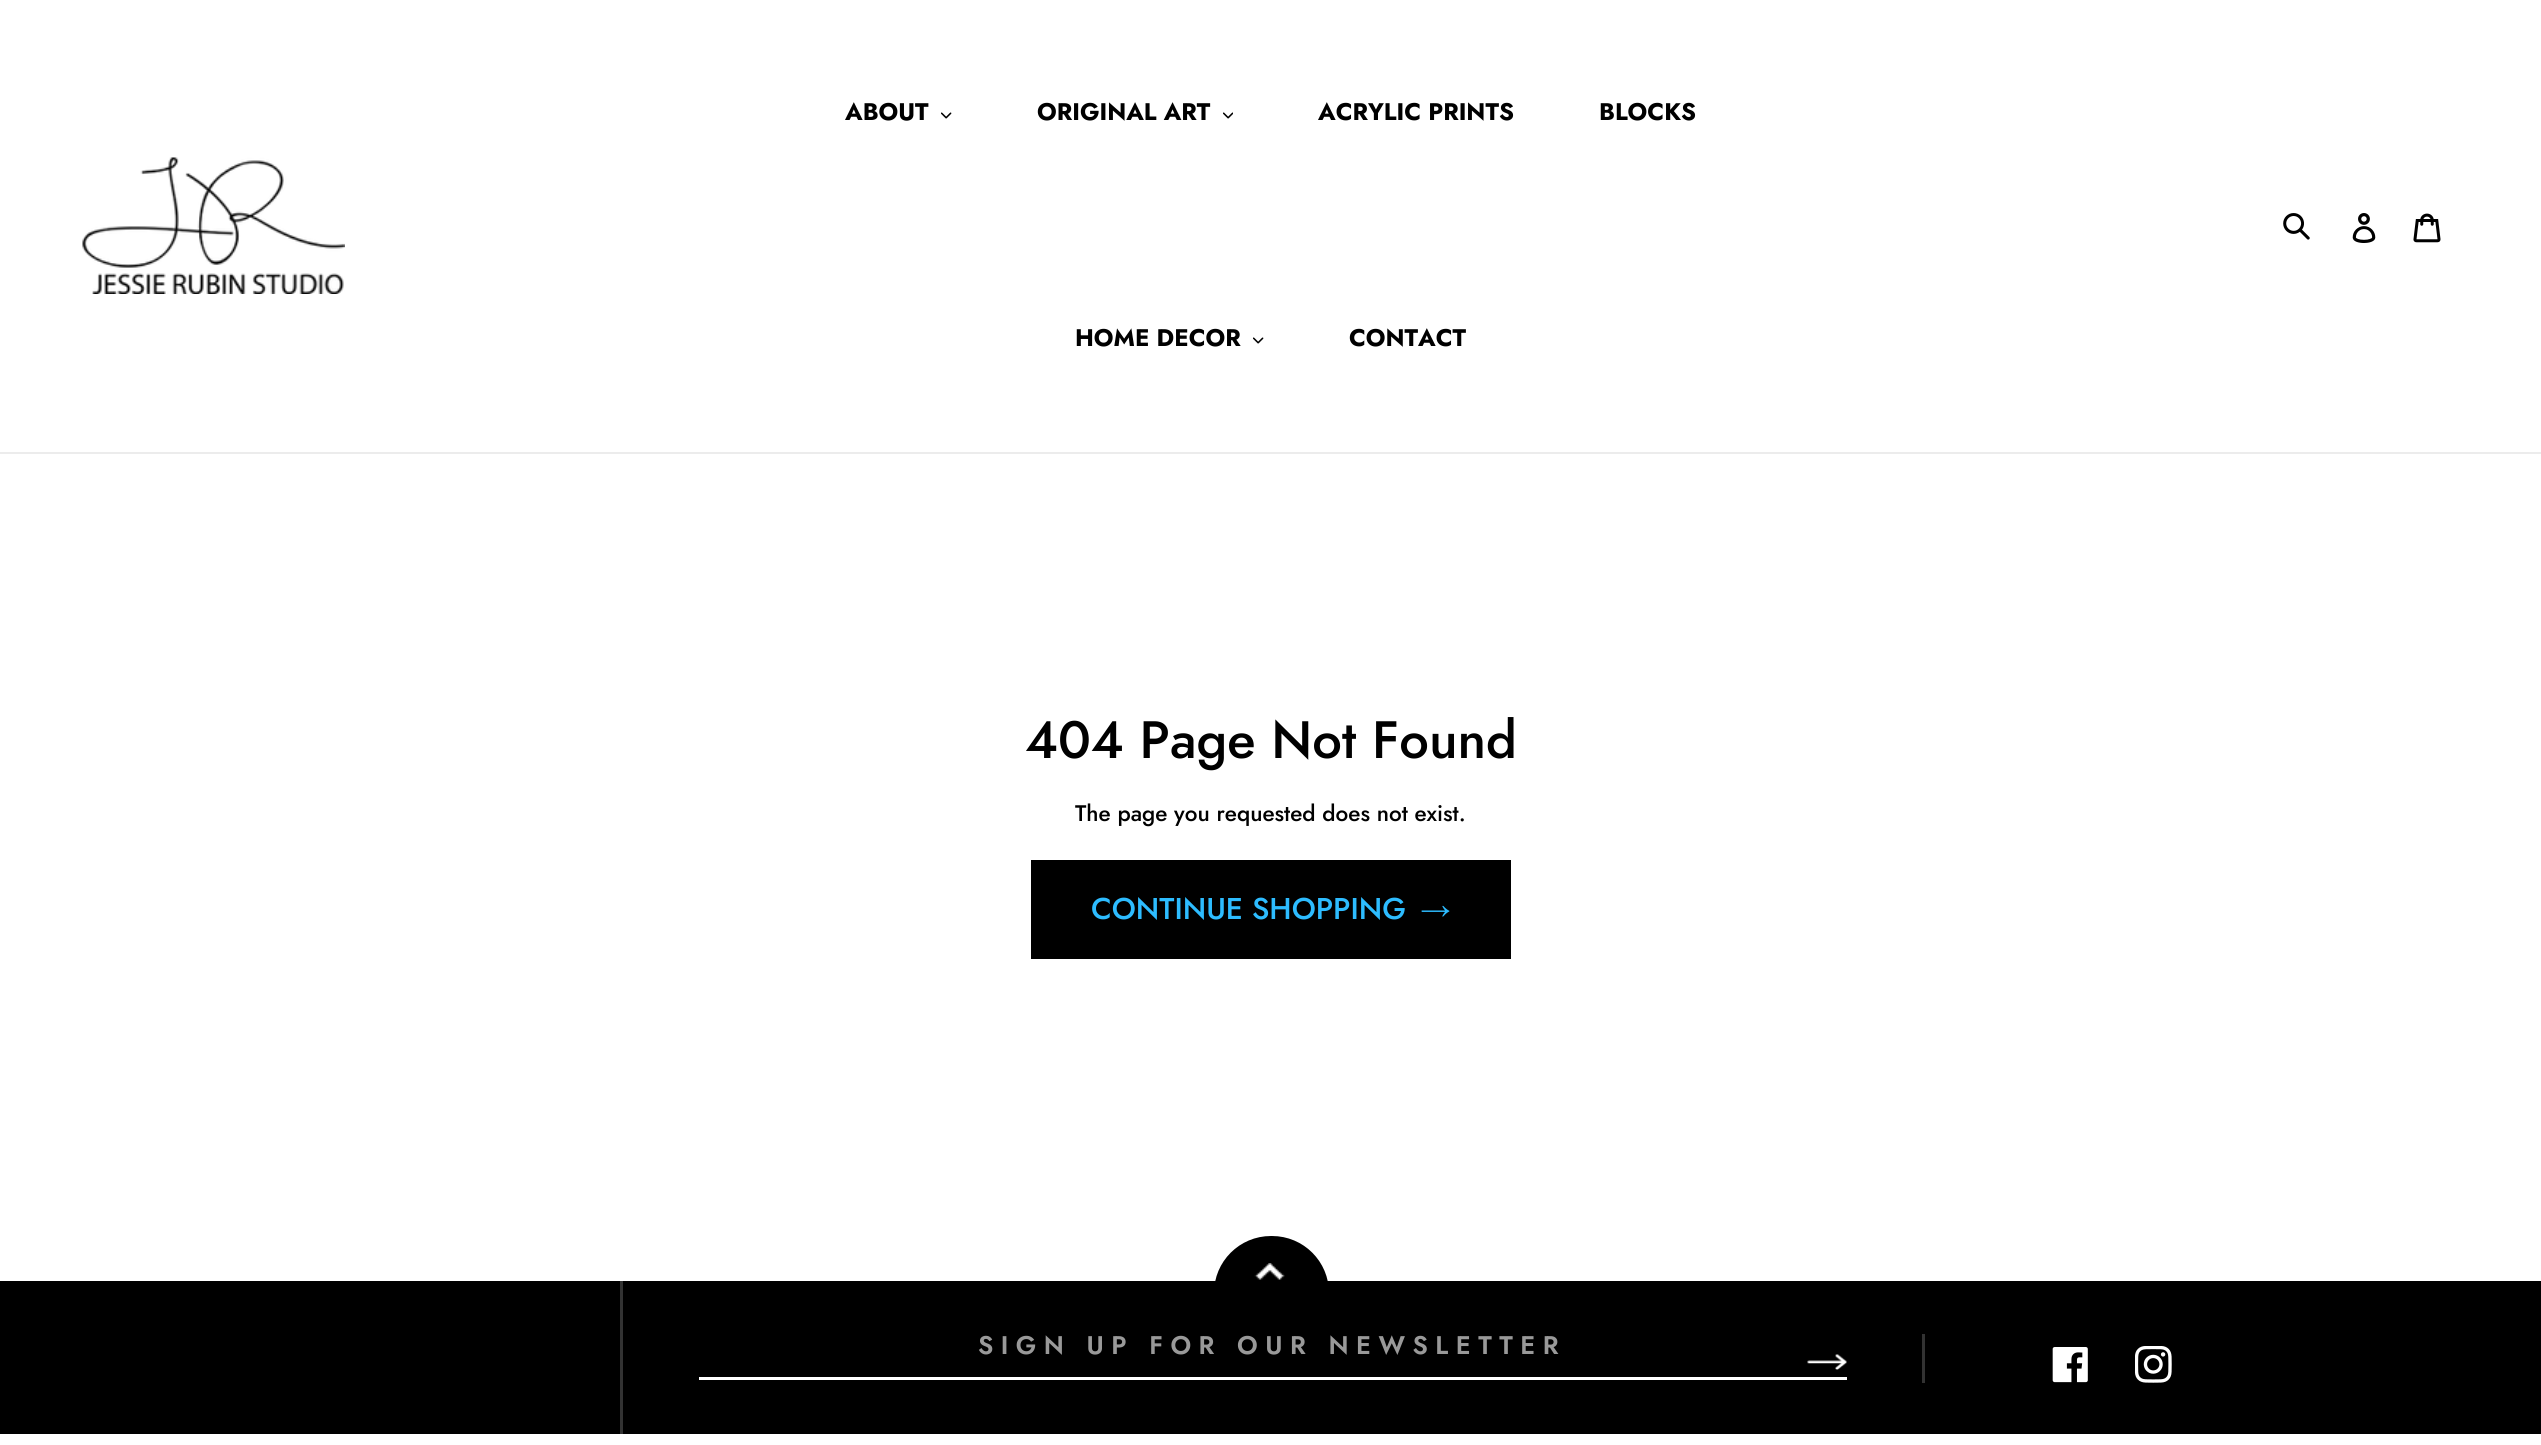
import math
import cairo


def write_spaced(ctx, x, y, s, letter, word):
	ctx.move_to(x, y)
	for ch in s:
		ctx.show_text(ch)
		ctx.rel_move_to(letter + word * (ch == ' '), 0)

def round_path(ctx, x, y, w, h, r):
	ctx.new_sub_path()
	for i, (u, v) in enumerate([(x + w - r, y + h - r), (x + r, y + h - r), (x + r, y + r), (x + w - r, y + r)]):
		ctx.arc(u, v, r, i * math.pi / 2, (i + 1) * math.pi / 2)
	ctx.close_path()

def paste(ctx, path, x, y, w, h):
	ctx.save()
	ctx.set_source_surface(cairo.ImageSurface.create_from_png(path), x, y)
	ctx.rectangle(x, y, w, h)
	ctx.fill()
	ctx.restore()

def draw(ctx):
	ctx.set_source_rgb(1, 1, 1)
	ctx.paint()
	ctx.set_source_rgb(0.925, 0.925, 0.925)
	ctx.rectangle(0, 452, 2541, 2)
	ctx.fill()
	paste(ctx, 'media/1.png', 82, 157, 263, 137)
	ctx.select_font_face('Jost', cairo.FONT_SLANT_NORMAL, cairo.FONT_WEIGHT_BOLD)
	ctx.set_font_size(24)
	ctx.set_source_rgb(0, 0, 0)
	ctx.move_to(845, 120)
	ctx.show_text('ABOUT')
	paste(ctx, 'media/2.png', 941, 112, 11, 7)
	ctx.move_to(1037, 120)
	ctx.show_text('ORIGINAL ART')
	paste(ctx, 'media/3.png', 1223, 112, 10, 7)
	for x, y, s in [
		(1318, 120, 'ACRYLIC PRINTS'),
		(1599, 120, 'BLOCKS'),
		(1075, 346, 'HOME DECOR'),
	]:
		ctx.move_to(x, y)
		ctx.show_text(s)
	paste(ctx, 'media/2.png', 1253, 337, 11, 7)
	ctx.move_to(1349, 346)
	ctx.show_text('CONTACT')
	paste(ctx, 'media/4.png', 2283, 213, 27, 27)
	paste(ctx, 'media/5.png', 2352, 213, 24, 30)
	paste(ctx, 'media/6.png', 2413, 213, 28, 30)
	ctx.select_font_face('Jost Medium')
	ctx.set_font_size(52.5)
	ctx.move_to(1025, 758)
	ctx.show_text('404 Page Not Found')
	ctx.set_font_size(22.5)
	ctx.move_to(1075, 821)
	ctx.show_text('The page you requested does not exist.')
	ctx.rectangle(1031, 860, 480, 99)
	ctx.fill()
	ctx.set_font_size(30)
	ctx.set_source_rgb(0.176, 0.737, 1)
	ctx.move_to(1091, 919)
	ctx.show_text('CONTINUE SHOPPING')
	paste(ctx, 'media/7.png', 1421, 905, 29, 12)
	ctx.set_source_rgb(0, 0, 0)
	ctx.rectangle(0, 1281, 2541, 153)
	ctx.fill()
	round_path(ctx, 1214, 1236, 115, 116, 57)
	ctx.fill()
	paste(ctx, 'media/8.png', 1254, 1263, 31, 17)
	ctx.set_source_rgb(0.196, 0.196, 0.196)
	ctx.rectangle(620, 1281, 3, 153)
	ctx.fill()
	ctx.set_source_rgb(1, 1, 1)
	ctx.rectangle(699, 1377, 1148, 3)
	ctx.fill()
	ctx.select_font_face('Jost SemiBold')
	ctx.set_font_size(25.5)
	ctx.set_source_rgb(0.6, 0.6, 0.6)
	write_spaced(ctx, 978, 1354, 'SIGN UP FOR OUR NEWSLETTER', 7.5, 0)
	paste(ctx, 'media/9.png', 1807, 1354, 40, 16)
	ctx.set_source_rgb(0.196, 0.196, 0.196)
	ctx.rectangle(1922, 1334, 3, 49)
	ctx.fill()
	paste(ctx, 'media/10.png', 2052, 1347, 36, 36)
	paste(ctx, 'media/11.png', 2135, 1346, 37, 37)


surface = cairo.ImageSurface(cairo.FORMAT_RGB24, 2541, 1445)
ctx = cairo.Context(surface)
options = cairo.FontOptions()
options.set_hint_metrics(cairo.HINT_METRICS_OFF)
options.set_hint_style(cairo.HINT_STYLE_NONE)
ctx.set_font_options(options)
ctx.set_miter_limit(4)
draw(ctx)
surface.write_to_png('image.png')
